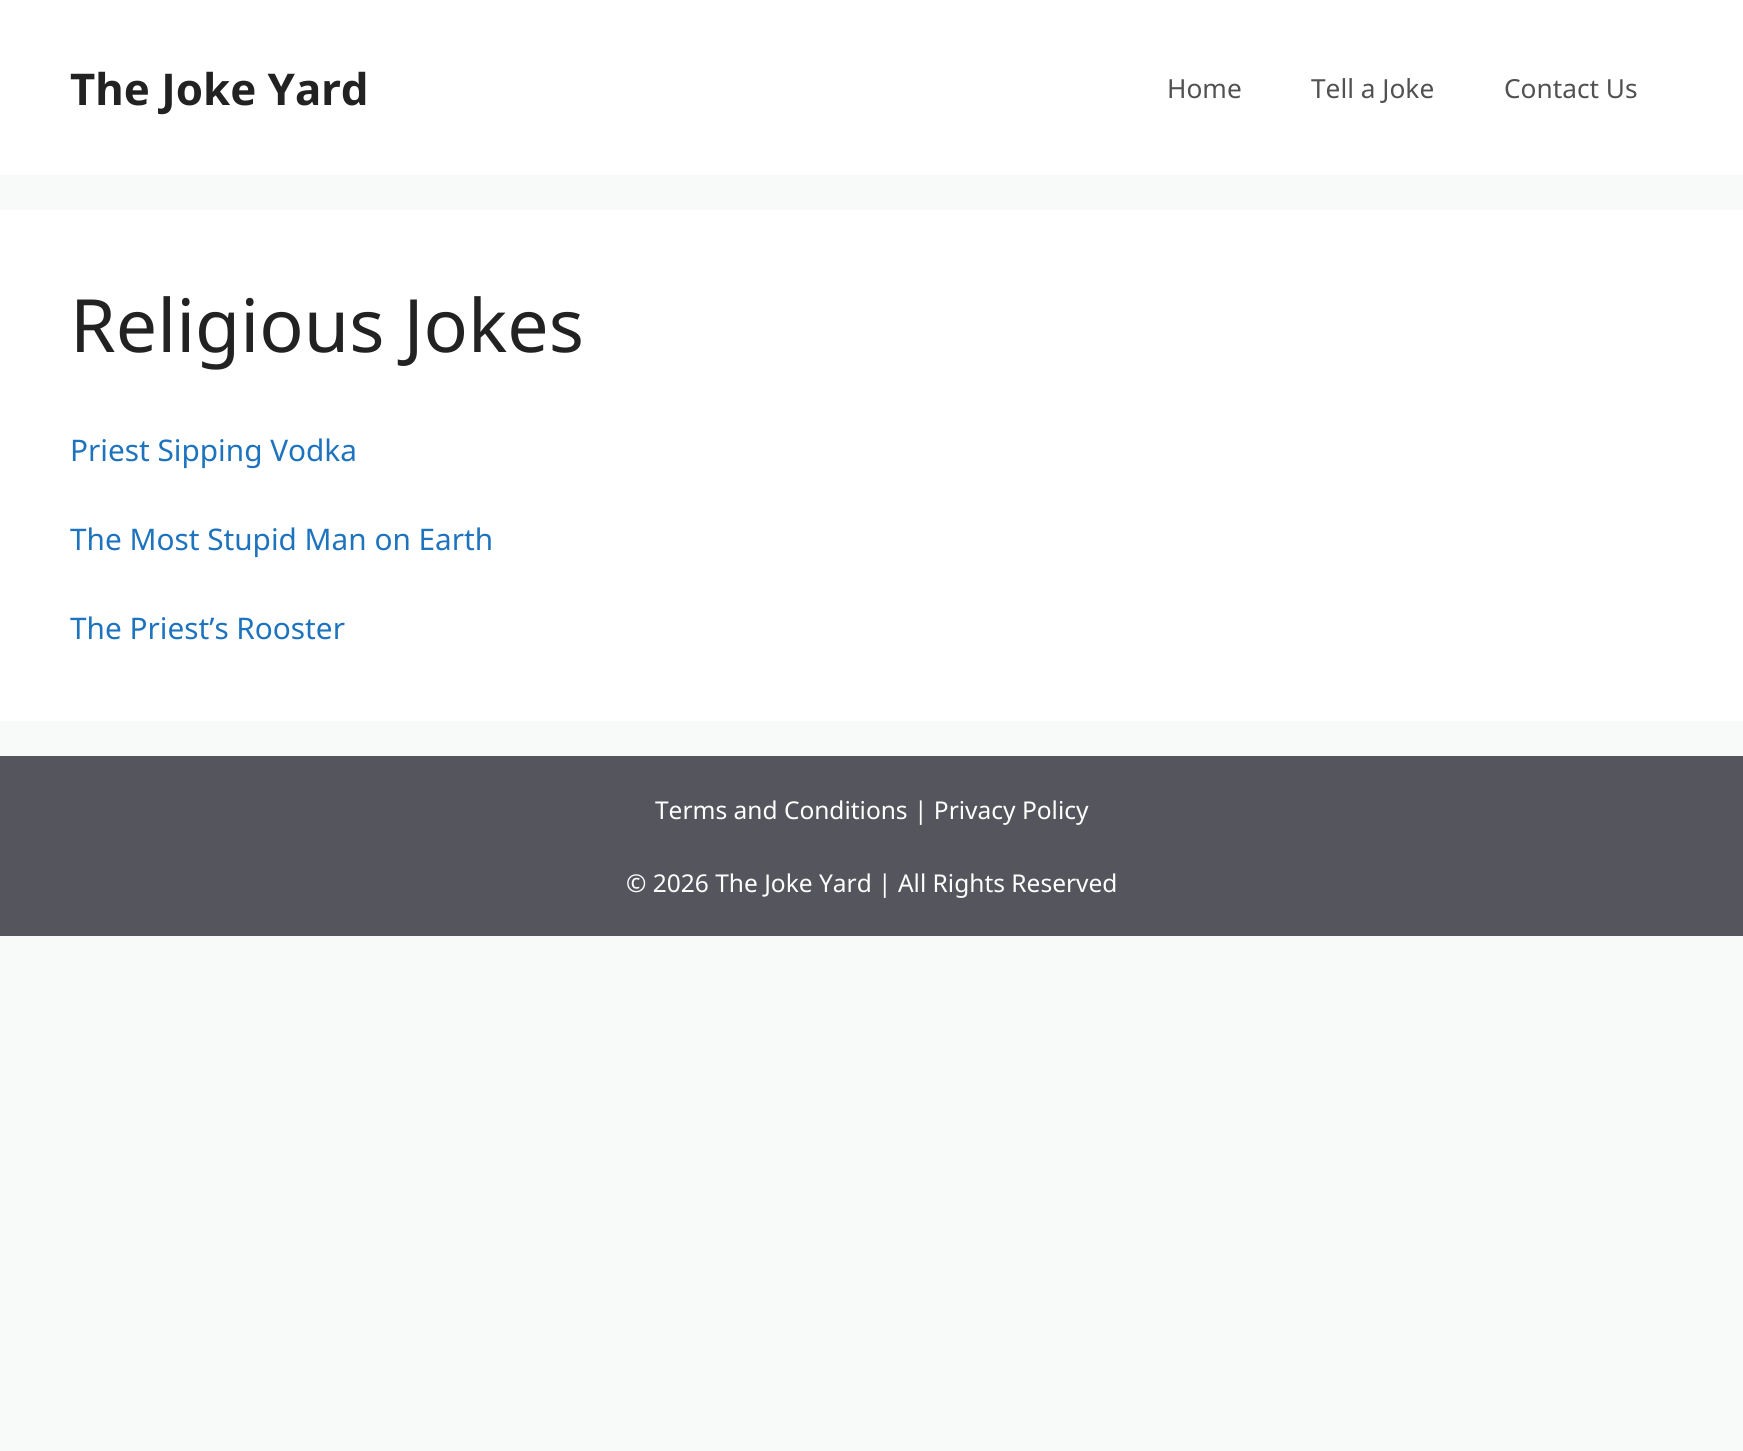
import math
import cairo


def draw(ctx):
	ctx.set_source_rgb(0.969, 0.973, 0.976)
	ctx.paint()
	ctx.set_source_rgb(1, 1, 1)
	ctx.rectangle(0, 0, 1743, 175)
	ctx.fill()
	ctx.select_font_face('Noto Sans', cairo.FONT_SLANT_NORMAL, cairo.FONT_WEIGHT_BOLD)
	ctx.set_font_size(43.75)
	ctx.set_source_rgb(0.133, 0.133, 0.133)
	ctx.move_to(70, 105)
	ctx.show_text('The Joke Yard')
	ctx.select_font_face('Noto Sans')
	ctx.set_font_size(26.25)
	ctx.set_source_rgb(0.318, 0.318, 0.318)
	for x, y, s in [
		(1167, 98, 'Home'),
		(1311, 98, 'Tell a Joke'),
		(1504, 98, 'Contact Us'),
	]:
		ctx.move_to(x, y)
		ctx.show_text(s)
	ctx.set_source_rgb(1, 1, 1)
	ctx.rectangle(0, 210, 1743, 511)
	ctx.fill()
	ctx.set_font_size(73.5)
	ctx.set_source_rgb(0.133, 0.133, 0.133)
	ctx.move_to(70, 352)
	ctx.show_text('Religious Jokes')
	ctx.set_font_size(29.75)
	ctx.set_source_rgb(0.118, 0.451, 0.745)
	for x, y, s in [
		(70, 461, 'Priest Sipping Vodka'),
		(70, 550, 'The Most Stupid Man on Earth'),
		(70, 639, 'The Priest’s Rooster'),
	]:
		ctx.move_to(x, y)
		ctx.show_text(s)
	ctx.set_source_rgb(0.333, 0.333, 0.369)
	ctx.rectangle(0, 756, 1743, 180)
	ctx.fill()
	ctx.set_font_size(24.5)
	ctx.set_source_rgb(1, 1, 1)
	ctx.move_to(655, 819)
	ctx.show_text('Terms and Conditions | Privacy Policy')
	ctx.move_to(626, 892)
	ctx.show_text('© 2026 The Joke Yard | All Rights Reserved')


surface = cairo.ImageSurface(cairo.FORMAT_RGB24, 1743, 1451)
ctx = cairo.Context(surface)
options = cairo.FontOptions()
options.set_hint_metrics(cairo.HINT_METRICS_OFF)
options.set_hint_style(cairo.HINT_STYLE_NONE)
ctx.set_font_options(options)
ctx.set_miter_limit(4)
draw(ctx)
surface.write_to_png('image.png')
